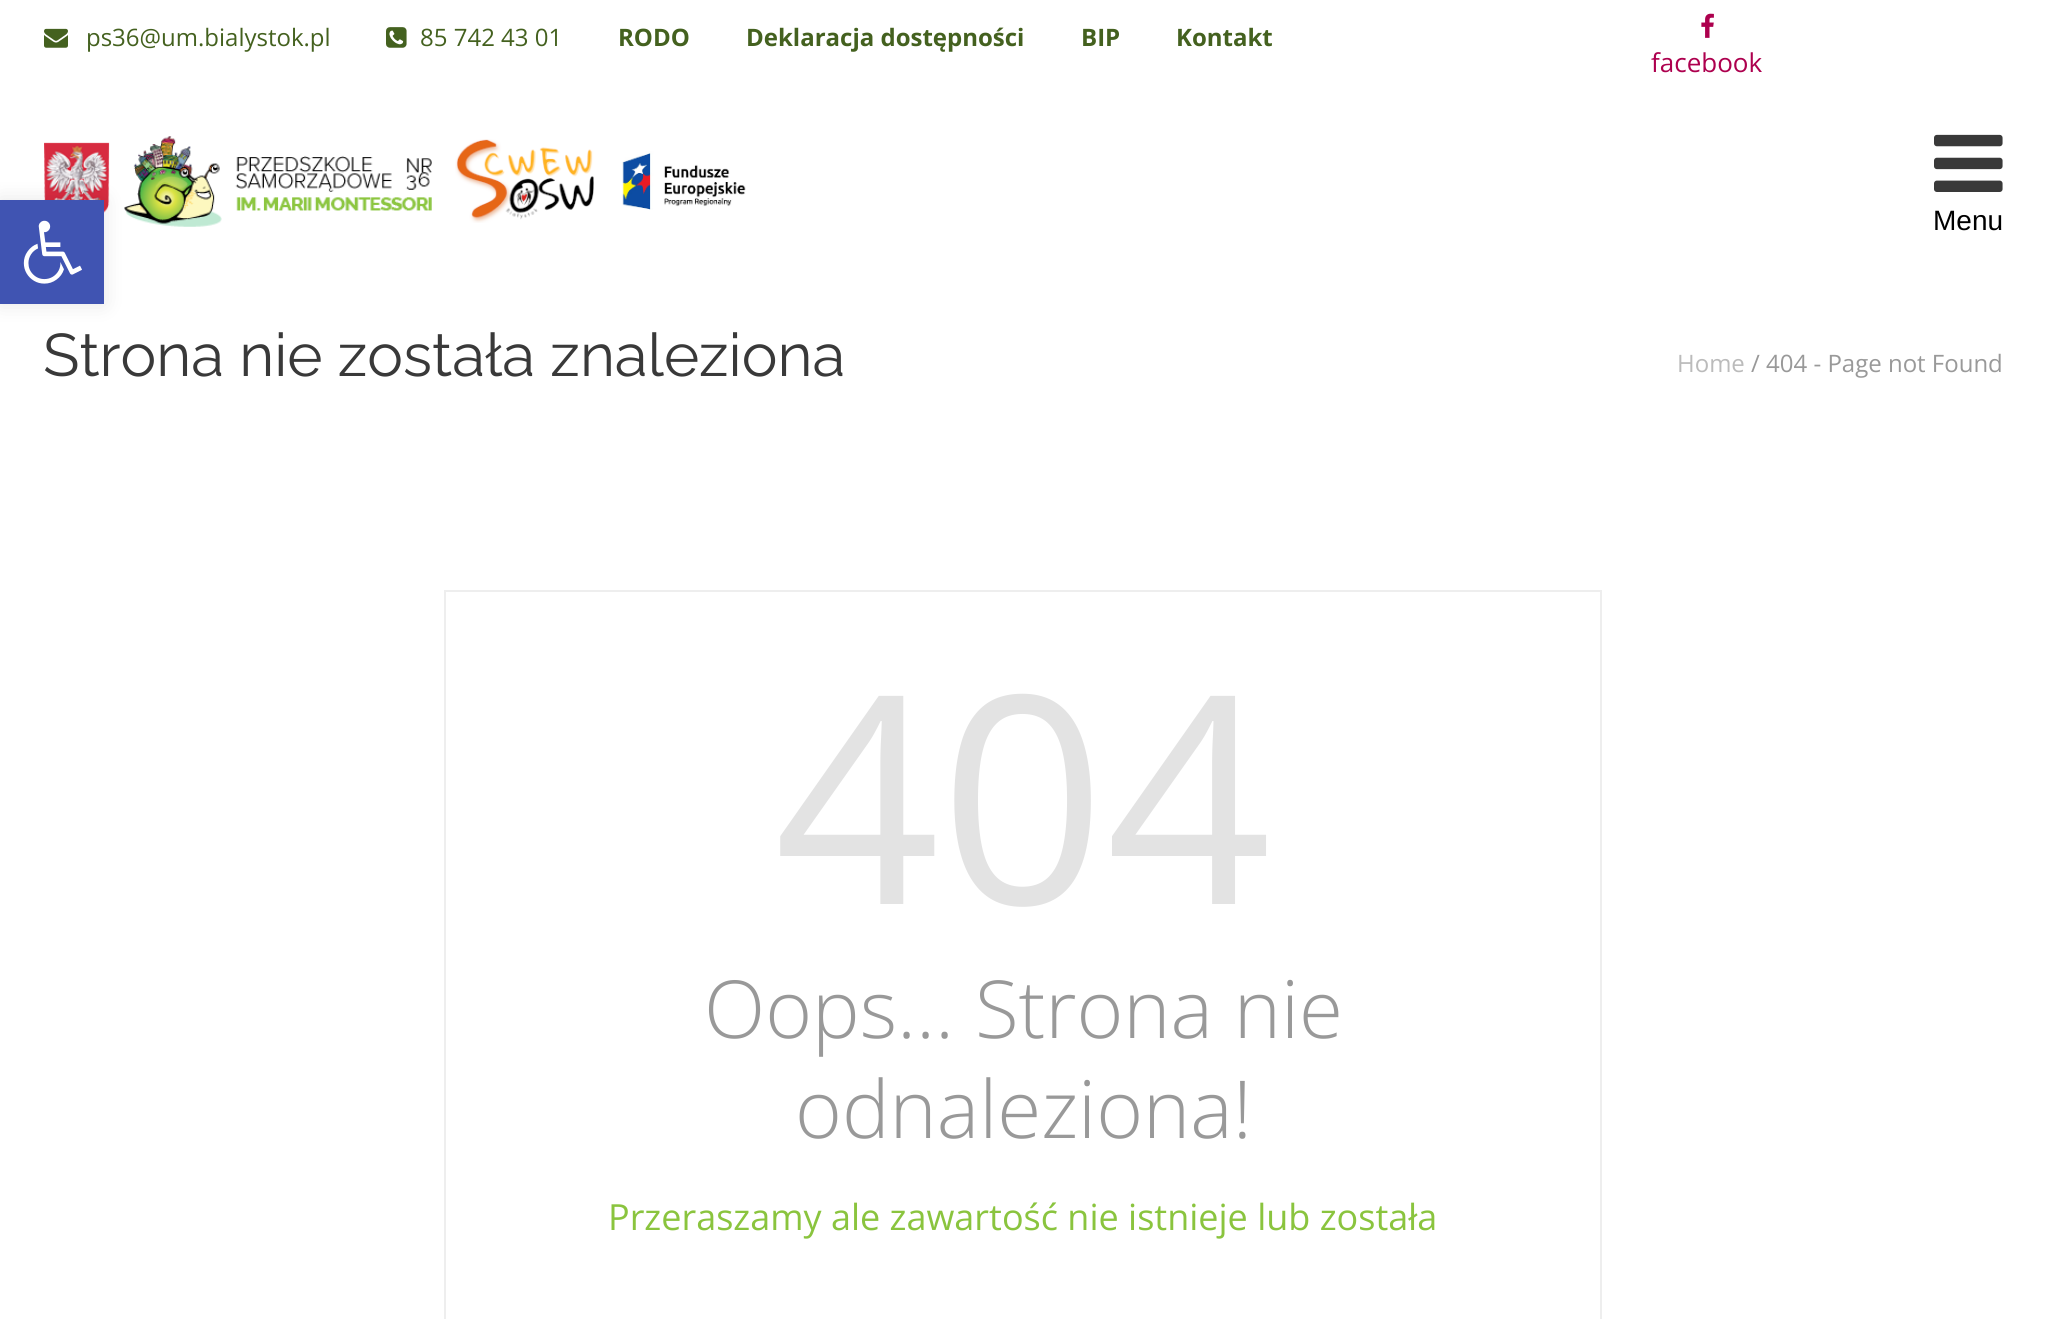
import math
import cairo


def round_path(ctx, x, y, w, h, r):
	ctx.new_sub_path()
	for i, (u, v) in enumerate([(x + w - r, y + h - r), (x + r, y + h - r), (x + r, y + r), (x + w - r, y + r)]):
		ctx.arc(u, v, r, i * math.pi / 2, (i + 1) * math.pi / 2)
	ctx.close_path()

def blur_box(ctx, x, y, w, h, r, blur, alpha):
	ctx.push_group_with_content(cairo.CONTENT_ALPHA)
	ctx.set_operator(cairo.OPERATOR_SOURCE)
	for i in range(15, -16, -2):
		e = blur * i / 6
		if min(w, h) + 2 * e > 0:
			ctx.set_source_rgba(0, 0, 0, alpha * math.erfc((i - 1) / 8.5) / 2)
			round_path(ctx, x - e, y - e, w + 2 * e, h + 2 * e, max(0, min(r + e + blur * .6, min(w, h) / 2 + e)))
			ctx.fill()
	ctx.mask(ctx.pop_group())

def paste(ctx, path, x, y, w, h):
	ctx.save()
	ctx.set_source_surface(cairo.ImageSurface.create_from_png(path), x, y)
	ctx.rectangle(x, y, w, h)
	ctx.fill()
	ctx.restore()

def draw(ctx):
	ctx.set_source_rgb(1, 1, 1)
	ctx.paint()
	paste(ctx, 'media/1.png', 44, 28, 24, 20)
	ctx.select_font_face('Open Sans')
	ctx.set_font_size(24)
	ctx.set_source_rgb(0.267, 0.38, 0.122)
	ctx.move_to(86, 46)
	ctx.show_text('ps36@um.bialystok.pl')
	paste(ctx, 'media/2.png', 386, 27, 21, 21)
	ctx.move_to(420, 46)
	ctx.show_text('85 742 43 01')
	ctx.select_font_face('Open Sans', cairo.FONT_SLANT_NORMAL, cairo.FONT_WEIGHT_BOLD)
	for x, y, s in [
		(618, 46, 'RODO'),
		(746, 46, 'Deklaracja dostępności'),
		(1081, 46, 'BIP'),
		(1176, 46, 'Kontakt'),
	]:
		ctx.move_to(x, y)
		ctx.show_text(s)
	paste(ctx, 'media/3.png', 1701, 13, 13, 25)
	ctx.select_font_face('Open Sans')
	ctx.set_font_size(26)
	ctx.set_source_rgb(0.678, 0, 0.306)
	ctx.move_to(1651, 72)
	ctx.show_text('facebook')
	paste(ctx, 'media/4.png', 44, 136, 388, 91)
	paste(ctx, 'media/5.png', 455, 139, 139, 84)
	paste(ctx, 'media/6.png', 622, 151, 124, 59)
	paste(ctx, 'media/7.png', 1934, 134, 69, 58)
	ctx.select_font_face('Liberation Sans')
	ctx.set_font_size(28)
	ctx.set_source_rgb(0, 0, 0)
	ctx.move_to(1933, 230)
	ctx.show_text('Menu')
	ctx.select_font_face('Raleway')
	ctx.set_font_size(60)
	ctx.set_source_rgb(0.224, 0.224, 0.224)
	ctx.move_to(43, 376)
	ctx.show_text('Strona nie została znaleziona')
	ctx.select_font_face('Open Sans')
	ctx.set_font_size(24)
	ctx.set_source_rgb(0.733, 0.733, 0.733)
	ctx.move_to(1677, 372)
	ctx.show_text('Home')
	ctx.set_source_rgb(0.6, 0.6, 0.6)
	ctx.move_to(1751, 372)
	ctx.show_text('/ 404 - Page not Found')
	ctx.set_source_rgb(0.933, 0.933, 0.933)
	ctx.rectangle(444, 590, 1158, 2)
	ctx.rectangle(1600, 590, 2, 729)
	ctx.rectangle(444, 590, 2, 729)
	ctx.fill()
	ctx.set_font_size(290)
	ctx.set_source_rgb(0.89, 0.89, 0.89)
	ctx.move_to(774, 904)
	ctx.show_text('404')
	ctx.select_font_face('Open Sans Light')
	ctx.set_font_size(80)
	ctx.set_source_rgb(0.6, 0.6, 0.6)
	ctx.move_to(704, 1038)
	ctx.show_text('Oops... Strona nie')
	ctx.move_to(795, 1138)
	ctx.show_text('odnaleziona!')
	ctx.select_font_face('Open Sans')
	ctx.set_font_size(36)
	ctx.set_source_rgb(0.541, 0.769, 0.243)
	ctx.move_to(608, 1230)
	ctx.show_text('Przeraszamy ale zawartość nie istnieje lub została')
	ctx.set_source_rgb(0, 0, 0)
	blur_box(ctx, 0, 200, 104, 104, 0, 10, 0.1)
	ctx.set_source_rgb(0.251, 0.329, 0.698)
	ctx.rectangle(0, 200, 104, 104)
	ctx.fill()
	paste(ctx, 'media/8.png', 23, 220, 59, 64)


surface = cairo.ImageSurface(cairo.FORMAT_RGB24, 2045, 1319)
ctx = cairo.Context(surface)
options = cairo.FontOptions()
options.set_hint_metrics(cairo.HINT_METRICS_OFF)
options.set_hint_style(cairo.HINT_STYLE_NONE)
ctx.set_font_options(options)
ctx.set_miter_limit(4)
draw(ctx)
surface.write_to_png('image.png')
